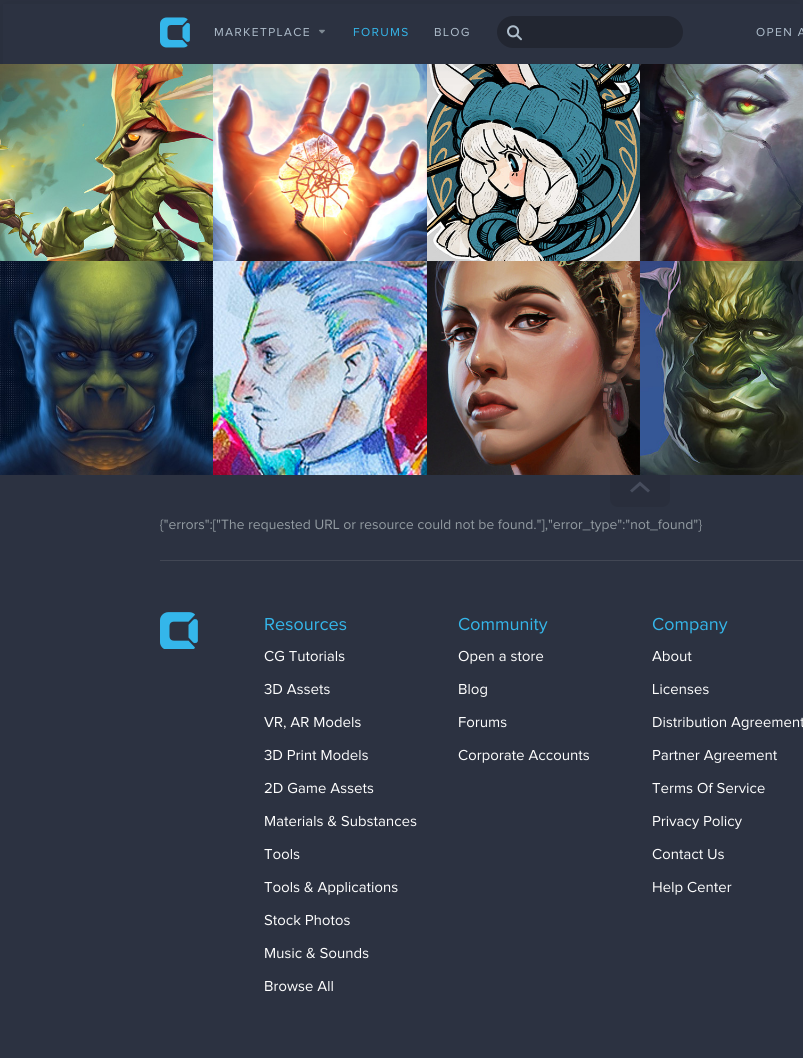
import math
import cairo


def round_path(ctx, x, y, w, h, r):
	ctx.new_sub_path()
	for i, (u, v) in enumerate([(x + w - r, y + h - r), (x + r, y + h - r), (x + r, y + r), (x + w - r, y + r)]):
		ctx.arc(u, v, r, i * math.pi / 2, (i + 1) * math.pi / 2)
	ctx.close_path()

def blur_box(ctx, x, y, w, h, r, blur, alpha):
	ctx.push_group_with_content(cairo.CONTENT_ALPHA)
	ctx.set_operator(cairo.OPERATOR_SOURCE)
	for i in range(15, -16, -2):
		e = blur * i / 6
		if min(w, h) + 2 * e > 0:
			ctx.set_source_rgba(0, 0, 0, alpha * math.erfc((i - 1) / 8.5) / 2)
			round_path(ctx, x - e, y - e, w + 2 * e, h + 2 * e, max(0, min(r + e + blur * .6, min(w, h) / 2 + e)))
			ctx.fill()
	ctx.mask(ctx.pop_group())

def paste(ctx, path, x, y, w, h):
	ctx.save()
	ctx.set_source_surface(cairo.ImageSurface.create_from_png(path), x, y)
	ctx.rectangle(x, y, w, h)
	ctx.fill()
	ctx.restore()

def draw(ctx):
	ctx.set_source_rgb(0.173, 0.196, 0.255)
	ctx.paint()
	paste(ctx, 'media/8.png', 0, 64, 213, 197)
	paste(ctx, 'media/12.png', 426, 64, 1, 197)
	paste(ctx, 'media/11.png', 213, 64, 214, 197)
	paste(ctx, 'media/15.png', 639, 64, 1, 197)
	paste(ctx, 'media/14.png', 427, 64, 213, 197)
	paste(ctx, 'media/18.png', 640, 64, 163, 197)
	ctx.set_source_rgb(0, 0, 0)
	blur_box(ctx, 0, 4, 803, 64, 0, 20, 0.08)
	ctx.set_source_rgb(0.173, 0.196, 0.255)
	ctx.rectangle(3, 4, 797, 60)
	ctx.fill()
	paste(ctx, 'media/1.png', 160, 17, 30, 31)
	paste(ctx, 'media/2.png', 214, 27, 95, 10)
	paste(ctx, 'media/3.png', 319, 29, 6, 5)
	paste(ctx, 'media/4.png', 353, 27, 55, 10)
	paste(ctx, 'media/5.png', 434, 27, 35, 10)
	ctx.set_source_rgb(0.133, 0.149, 0.192)
	round_path(ctx, 497, 16, 186, 32, 16)
	ctx.fill()
	paste(ctx, 'media/6.png', 507, 25, 15, 16)
	paste(ctx, 'media/7.png', 756, 27, 47, 10)
	paste(ctx, 'media/10.png', 0, 474, 213, 1)
	paste(ctx, 'media/9.png', 0, 261, 213, 214)
	paste(ctx, 'media/13.png', 213, 261, 214, 214)
	paste(ctx, 'media/16.png', 427, 261, 213, 214)
	paste(ctx, 'media/17.png', 427, 261, 213, 214)
	paste(ctx, 'media/20.png', 640, 474, 163, 1)
	paste(ctx, 'media/19.png', 640, 261, 163, 214)
	ctx.set_source_rgb(0.161, 0.18, 0.235)
	ctx.new_path()
	ctx.move_to(610, 475)
	ctx.line_to(670, 475)
	ctx.line_to(670, 499)
	ctx.curve_to(670, 503.5, 666.5, 507, 662, 507)
	ctx.line_to(618, 507)
	ctx.curve_to(613.5, 507, 610, 503.5, 610, 499)
	ctx.close_path()
	ctx.fill()
	ctx.set_source_rgb(0.278, 0.302, 0.365)
	ctx.new_path()
	ctx.move_to(640, 485.5)
	ctx.line_to(648, 492.5)
	ctx.line_to(650, 490.5)
	ctx.line_to(640, 481.5)
	ctx.line_to(630, 490.5)
	ctx.line_to(632, 492.5)
	ctx.close_path()
	ctx.fill()
	paste(ctx, 'media/21.png', 160, 519, 542, 13)
	ctx.set_source_rgb(0.259, 0.278, 0.329)
	ctx.rectangle(160, 560, 643, 1)
	ctx.fill()
	paste(ctx, 'media/22.png', 160, 612, 38, 37)
	paste(ctx, 'media/23.png', 265, 618, 82, 13)
	paste(ctx, 'media/24.png', 264, 650, 81, 12)
	paste(ctx, 'media/25.png', 264, 683, 66, 12)
	paste(ctx, 'media/26.png', 264, 717, 97, 12)
	paste(ctx, 'media/27.png', 264, 749, 104, 12)
	paste(ctx, 'media/28.png', 264, 782, 110, 12)
	paste(ctx, 'media/29.png', 265, 815, 152, 12)
	paste(ctx, 'media/30.png', 264, 849, 36, 11)
	paste(ctx, 'media/31.png', 264, 881, 134, 14)
	paste(ctx, 'media/32.png', 264, 914, 86, 12)
	paste(ctx, 'media/33.png', 265, 947, 104, 12)
	paste(ctx, 'media/34.png', 265, 981, 68, 11)
	paste(ctx, 'media/35.png', 458, 617, 90, 17)
	paste(ctx, 'media/36.png', 458, 650, 86, 14)
	paste(ctx, 'media/37.png', 459, 684, 28, 13)
	paste(ctx, 'media/38.png', 459, 717, 48, 11)
	paste(ctx, 'media/39.png', 458, 749, 131, 14)
	paste(ctx, 'media/40.png', 652, 617, 76, 17)
	paste(ctx, 'media/41.png', 652, 651, 40, 11)
	paste(ctx, 'media/42.png', 653, 684, 56, 11)
	paste(ctx, 'media/43.png', 653, 717, 150, 13)
	paste(ctx, 'media/44.png', 653, 750, 125, 13)
	paste(ctx, 'media/45.png', 652, 782, 113, 12)
	paste(ctx, 'media/46.png', 653, 816, 89, 13)
	paste(ctx, 'media/47.png', 652, 848, 72, 12)
	paste(ctx, 'media/48.png', 653, 881, 79, 14)


surface = cairo.ImageSurface(cairo.FORMAT_RGB24, 803, 1058)
ctx = cairo.Context(surface)
options = cairo.FontOptions()
options.set_hint_metrics(cairo.HINT_METRICS_OFF)
options.set_hint_style(cairo.HINT_STYLE_NONE)
ctx.set_font_options(options)
ctx.set_miter_limit(4)
draw(ctx)
surface.write_to_png('image.png')
